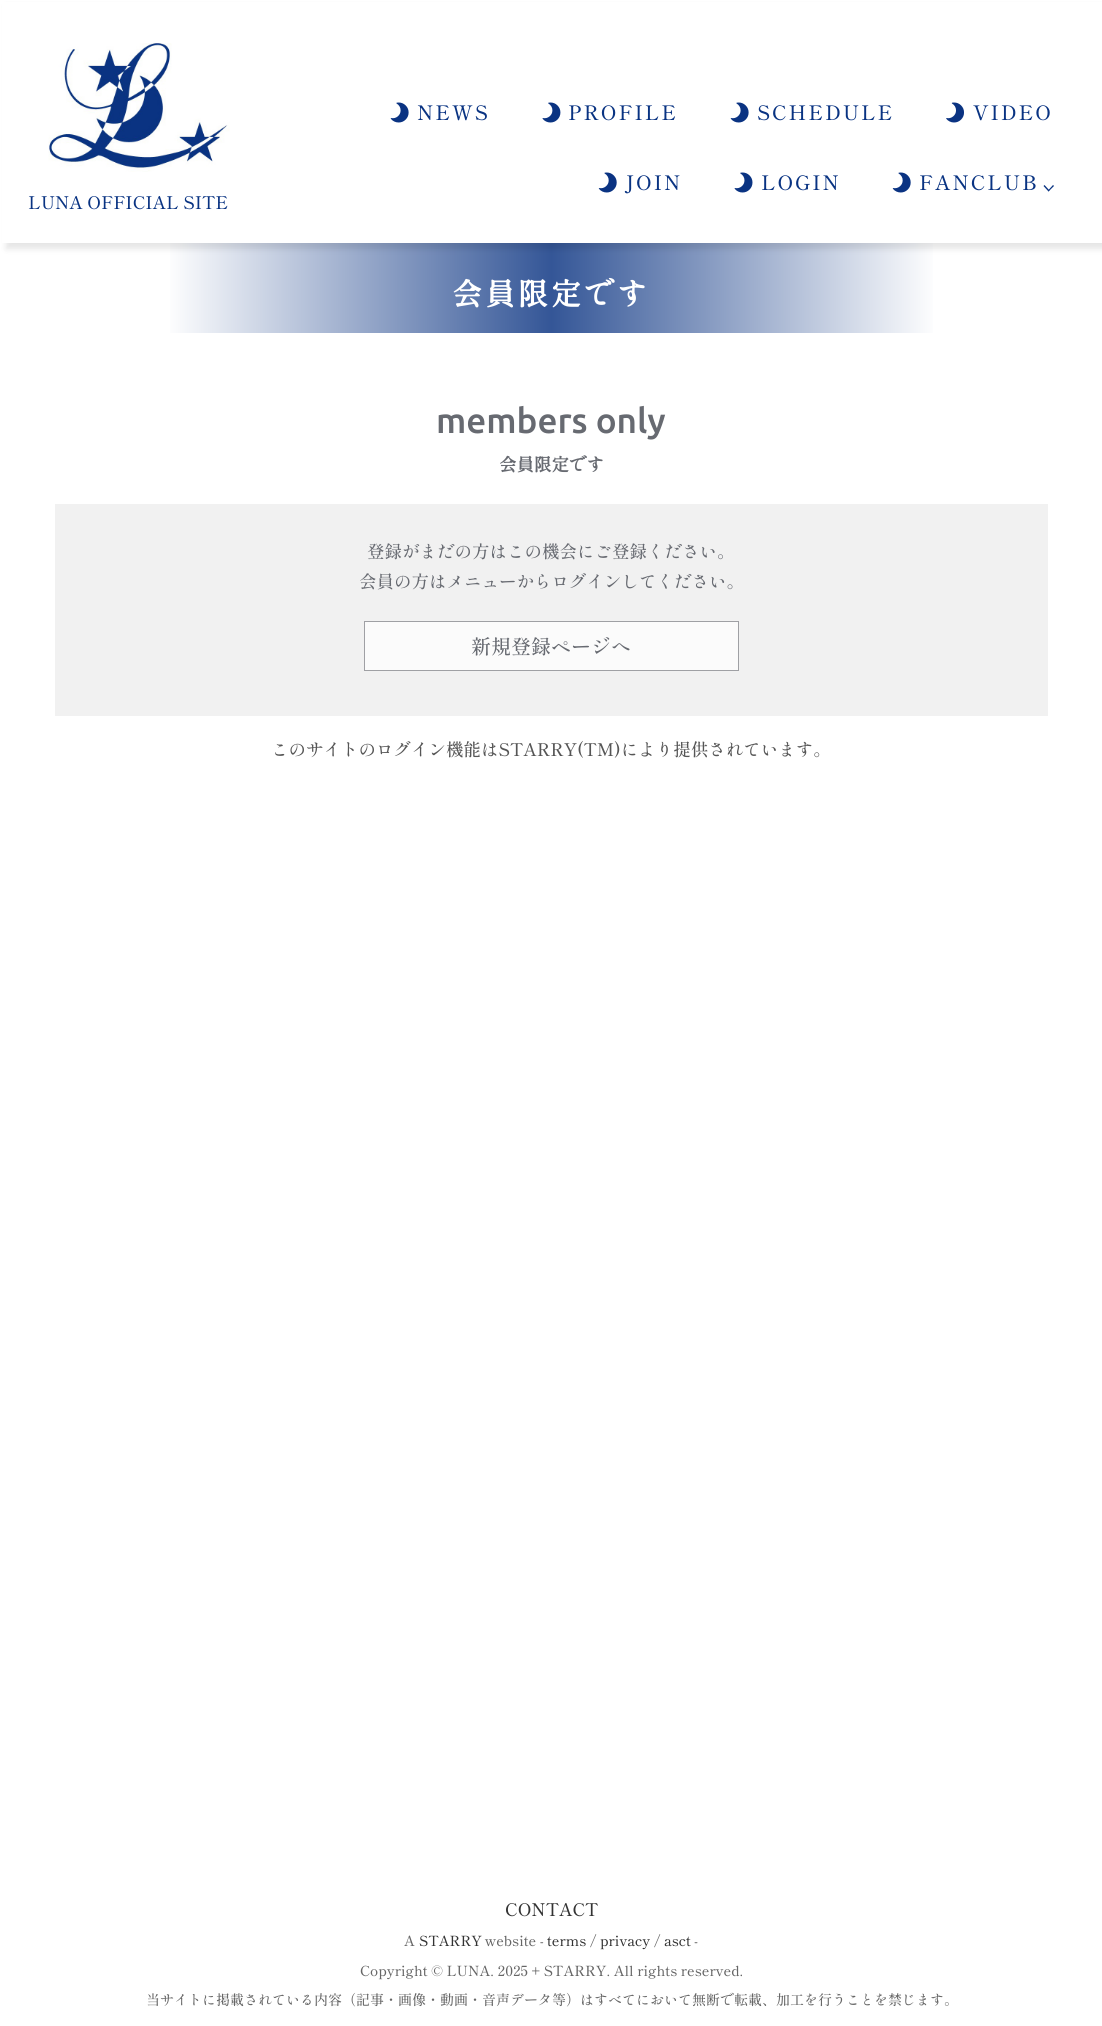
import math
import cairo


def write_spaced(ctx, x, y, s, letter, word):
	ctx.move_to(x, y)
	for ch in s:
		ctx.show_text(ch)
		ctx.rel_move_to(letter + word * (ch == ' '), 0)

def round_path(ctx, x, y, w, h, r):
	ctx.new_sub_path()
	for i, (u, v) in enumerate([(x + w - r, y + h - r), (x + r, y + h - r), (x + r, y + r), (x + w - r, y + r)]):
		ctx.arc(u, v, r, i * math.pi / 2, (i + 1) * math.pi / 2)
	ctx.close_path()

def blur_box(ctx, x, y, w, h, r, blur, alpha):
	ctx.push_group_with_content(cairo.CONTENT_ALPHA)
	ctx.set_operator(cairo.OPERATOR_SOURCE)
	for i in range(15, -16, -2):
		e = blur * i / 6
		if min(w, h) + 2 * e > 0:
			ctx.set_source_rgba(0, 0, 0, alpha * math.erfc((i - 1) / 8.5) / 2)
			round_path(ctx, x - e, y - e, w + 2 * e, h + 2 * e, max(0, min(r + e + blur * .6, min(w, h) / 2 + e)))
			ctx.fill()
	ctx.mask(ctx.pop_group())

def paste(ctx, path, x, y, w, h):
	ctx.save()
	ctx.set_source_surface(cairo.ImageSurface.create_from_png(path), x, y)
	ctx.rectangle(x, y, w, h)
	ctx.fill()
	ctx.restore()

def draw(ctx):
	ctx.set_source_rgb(1, 1, 1)
	ctx.paint()
	gradient = cairo.LinearGradient(0, 288, 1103, 287)
	gradient.add_color_stop_rgba(0.15, 1, 1, 1, 1)
	gradient.add_color_stop_rgba(0.5, 0.204, 0.337, 0.592, 1)
	gradient.add_color_stop_rgba(0.85, 1, 1, 1, 1)
	ctx.set_source(gradient)
	ctx.rectangle(170, 243, 763, 90)
	ctx.fill()
	ctx.set_source_rgb(0, 0, 0)
	blur_box(ctx, 6, 6, 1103, 243, 0, 3, 0.1)
	ctx.set_source_rgb(1, 1, 1)
	ctx.rectangle(2, 2, 1100, 241)
	ctx.fill()
	paste(ctx, 'media/1.png', 390, 102, 19, 21)
	ctx.select_font_face('Shippori Mincho B1 Medium')
	ctx.set_font_size(20)
	ctx.set_source_rgb(0.039, 0.2, 0.51)
	write_spaced(ctx, 417, 120, 'NEWS', 2, 0)
	paste(ctx, 'media/2.png', 542, 102, 19, 21)
	write_spaced(ctx, 568, 120, 'PROFILE', 2, 0)
	paste(ctx, 'media/1.png', 730, 102, 19, 21)
	write_spaced(ctx, 757, 120, 'SCHEDULE', 2, 0)
	paste(ctx, 'media/3.png', 946, 102, 18, 21)
	write_spaced(ctx, 973, 120, 'VIDEO', 2, 0)
	paste(ctx, 'media/4.png', 598, 172, 19, 21)
	write_spaced(ctx, 625, 190, 'JOIN', 2, 0)
	paste(ctx, 'media/5.png', 734, 172, 19, 21)
	write_spaced(ctx, 761, 190, 'LOGIN', 2, 0)
	paste(ctx, 'media/6.png', 892, 172, 19, 21)
	write_spaced(ctx, 919, 190, 'FANCLUB', 2, 0)
	ctx.new_path()
	ctx.move_to(1053, 185)
	ctx.line_to(1054, 186)
	ctx.line_to(1048.5, 191.5)
	ctx.line_to(1048, 190.5)
	ctx.close_path()
	ctx.fill()
	ctx.new_path()
	ctx.move_to(1044.5, 185)
	ctx.line_to(1049.5, 190.5)
	ctx.line_to(1048.5, 191.5)
	ctx.line_to(1043.5, 186)
	ctx.close_path()
	ctx.fill()
	paste(ctx, 'media/7.png', 48, 43, 182, 129)
	ctx.set_font_size(17.5)
	ctx.move_to(28, 209)
	ctx.show_text('LUNA OFFICIAL SITE')
	ctx.select_font_face('Shippori Mincho B1', cairo.FONT_SLANT_NORMAL, cairo.FONT_WEIGHT_BOLD)
	ctx.set_font_size(30)
	ctx.set_source_rgb(1, 1, 1)
	write_spaced(ctx, 452, 305, '会員限定です', 3, 0)
	ctx.select_font_face('Ubuntu Medium')
	ctx.set_font_size(35)
	ctx.set_source_rgb(0.404, 0.416, 0.443)
	ctx.move_to(436, 433)
	ctx.show_text('members only')
	ctx.select_font_face('Shippori Mincho B1', cairo.FONT_SLANT_NORMAL, cairo.FONT_WEIGHT_BOLD)
	ctx.set_font_size(17.5)
	ctx.move_to(499, 471)
	ctx.show_text('会員限定です')
	ctx.set_source_rgb(0.945, 0.945, 0.945)
	ctx.rectangle(55, 504, 993, 212)
	ctx.fill()
	ctx.select_font_face('Shippori Mincho B1 Medium')
	ctx.set_source_rgb(0.404, 0.416, 0.443)
	ctx.move_to(367, 558)
	ctx.show_text('登録がまだの方はこの機会にご登録ください。')
	ctx.move_to(359, 588)
	ctx.show_text('会員の方はメニューからログインしてください。')
	ctx.set_source_rgb(0.984, 0.984, 0.984)
	ctx.rectangle(364.5, 621.5, 374, 49)
	ctx.fill_preserve()
	ctx.set_source_rgb(0.624, 0.627, 0.643)
	ctx.set_line_width(1)
	ctx.stroke()
	ctx.set_font_size(20)
	ctx.set_source_rgb(0.404, 0.416, 0.443)
	ctx.move_to(471, 654)
	ctx.show_text('新規登録ページへ')
	ctx.set_font_size(17.5)
	ctx.set_source_rgb(0.337, 0.337, 0.337)
	ctx.move_to(271, 756)
	ctx.show_text('このサイトのログイン機能はSTARRY(TM)により提供されています。')
	ctx.set_source_rgb(0.2, 0.2, 0.2)
	ctx.move_to(505, 1916)
	ctx.show_text('CONTACT')
	ctx.set_font_size(14)
	ctx.set_source_rgb(0.4, 0.4, 0.4)
	ctx.move_to(404, 1946)
	ctx.show_text('A')
	ctx.set_source_rgb(0.2, 0.2, 0.2)
	ctx.move_to(419, 1946)
	ctx.show_text('STARRY')
	ctx.set_source_rgb(0.4, 0.4, 0.4)
	ctx.move_to(485, 1946)
	ctx.show_text('website -')
	ctx.set_source_rgb(0.2, 0.2, 0.2)
	ctx.move_to(547, 1946)
	ctx.show_text('terms')
	ctx.set_source_rgb(0.4, 0.4, 0.4)
	ctx.move_to(590, 1946)
	ctx.show_text('/')
	ctx.set_source_rgb(0.2, 0.2, 0.2)
	ctx.move_to(600, 1946)
	ctx.show_text('privacy')
	ctx.set_source_rgb(0.4, 0.4, 0.4)
	ctx.move_to(654, 1946)
	ctx.show_text('/')
	ctx.set_source_rgb(0.2, 0.2, 0.2)
	ctx.move_to(664, 1946)
	ctx.show_text('asct')
	ctx.set_source_rgb(0.4, 0.4, 0.4)
	for x, y, s in [
		(694, 1946, '-'),
		(360, 1976, 'Copyright © LUNA. 2025 + STARRY. All rights reserved.'),
		(146, 2005, '当サイトに掲載されている内容（記事・画像・動画・音声データ等）はすべてにおいて無断で転載、加工を行うことを禁じます。'),
	]:
		ctx.move_to(x, y)
		ctx.show_text(s)


surface = cairo.ImageSurface(cairo.FORMAT_RGB24, 1102, 2026)
ctx = cairo.Context(surface)
options = cairo.FontOptions()
options.set_hint_metrics(cairo.HINT_METRICS_OFF)
options.set_hint_style(cairo.HINT_STYLE_NONE)
ctx.set_font_options(options)
ctx.set_miter_limit(4)
draw(ctx)
surface.write_to_png('image.png')
